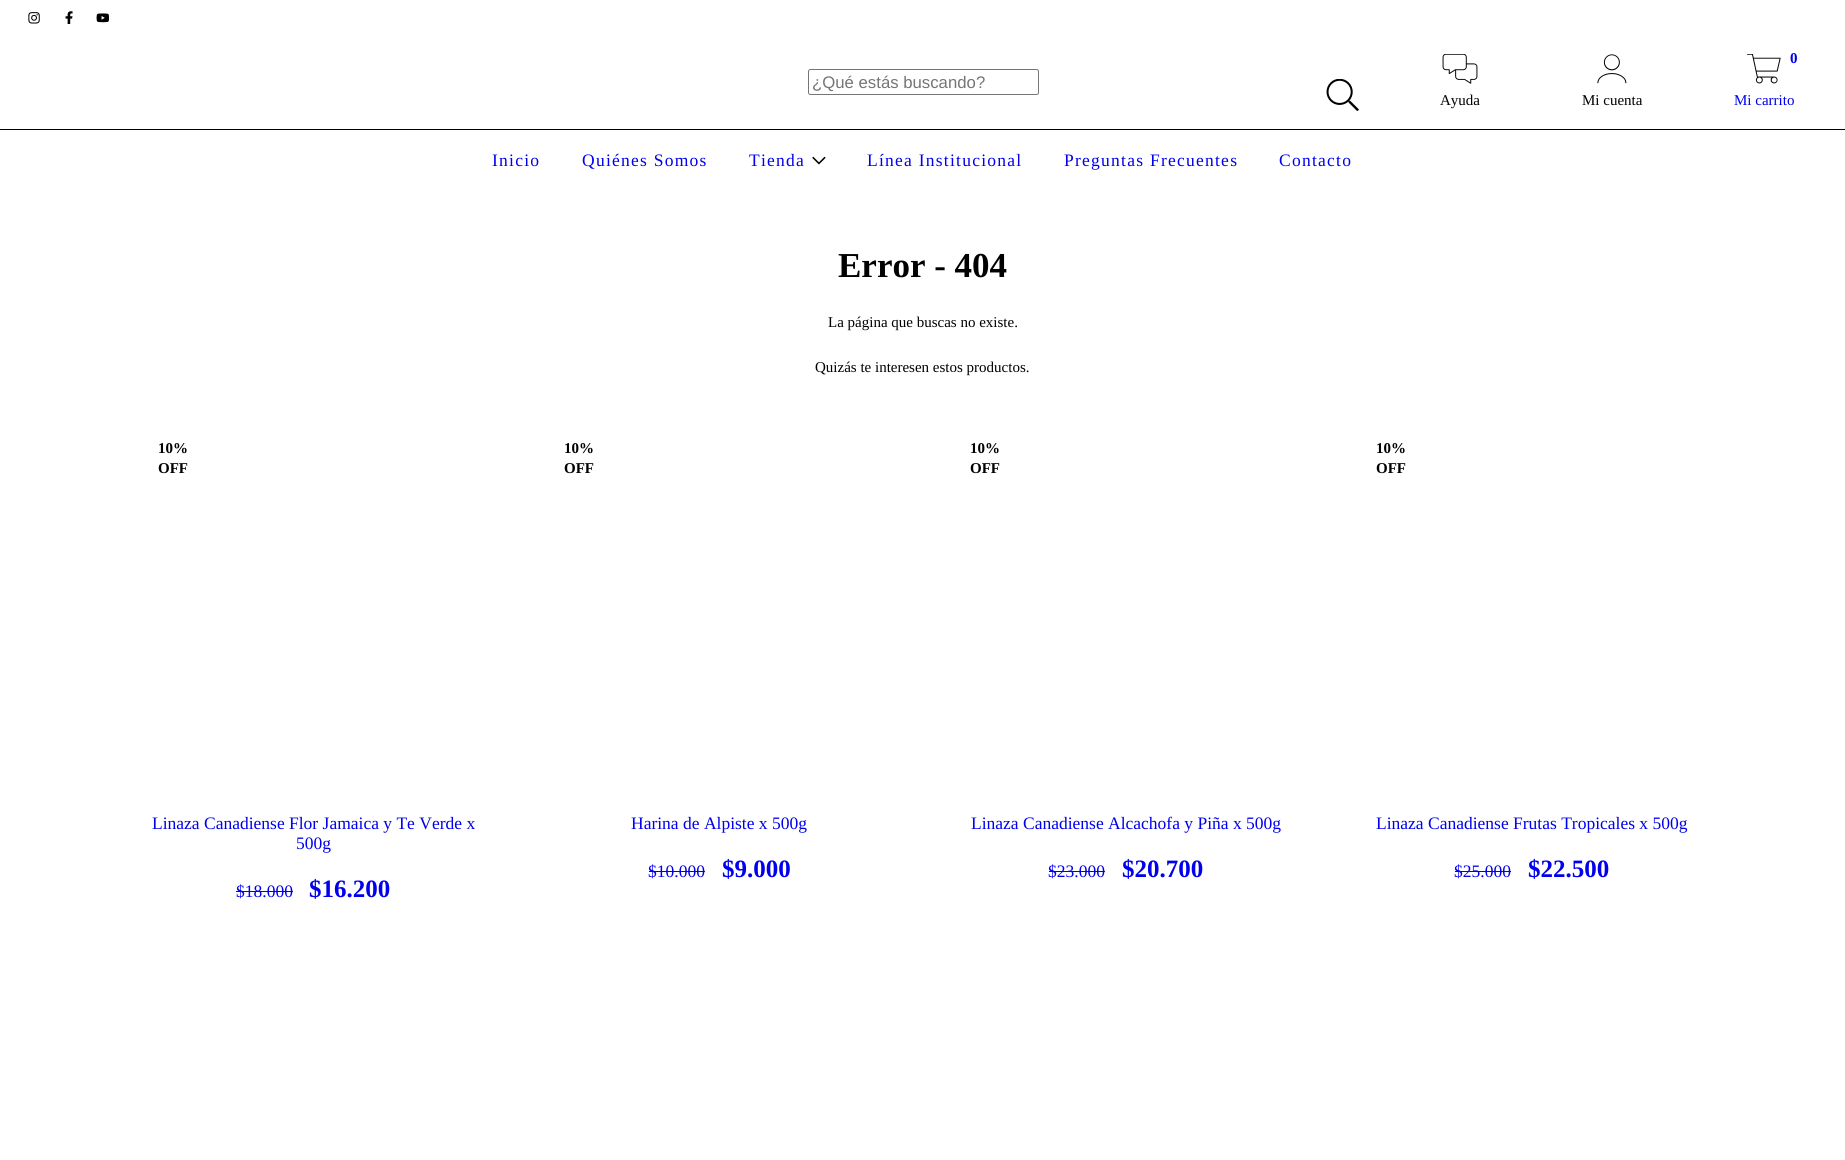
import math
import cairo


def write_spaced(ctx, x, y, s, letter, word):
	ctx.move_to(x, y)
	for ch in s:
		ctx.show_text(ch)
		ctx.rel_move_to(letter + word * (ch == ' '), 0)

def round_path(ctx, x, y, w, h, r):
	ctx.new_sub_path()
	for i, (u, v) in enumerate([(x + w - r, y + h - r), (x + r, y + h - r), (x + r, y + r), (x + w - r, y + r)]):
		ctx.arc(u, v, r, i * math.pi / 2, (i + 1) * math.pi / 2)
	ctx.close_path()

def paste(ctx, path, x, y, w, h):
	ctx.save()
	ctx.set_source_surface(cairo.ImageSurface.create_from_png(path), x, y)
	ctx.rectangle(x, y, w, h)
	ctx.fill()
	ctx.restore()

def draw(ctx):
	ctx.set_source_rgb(1, 1, 1)
	ctx.paint()
	paste(ctx, 'media/1.png', 28, 12, 12, 12)
	paste(ctx, 'media/2.png', 65, 11, 8, 13)
	paste(ctx, 'media/3.png', 96, 13, 13, 10)
	round_path(ctx, 808.5, 69.5, 230, 25, 2)
	ctx.set_source_rgb(0.463, 0.463, 0.463)
	ctx.set_line_width(1)
	ctx.stroke()
	ctx.select_font_face('Liberation Sans')
	ctx.set_font_size(16.75)
	ctx.set_source_rgb(0.459, 0.459, 0.459)
	ctx.move_to(812, 88)
	ctx.show_text('¿Qué estás buscando?')
	paste(ctx, 'media/4.png', 1326, 79, 33, 32)
	paste(ctx, 'media/5.png', 1442, 54, 36, 30)
	ctx.select_font_face('Liberation Serif')
	ctx.set_font_size(15)
	ctx.set_source_rgb(0, 0, 0)
	ctx.move_to(1440, 105)
	ctx.show_text('Ayuda')
	paste(ctx, 'media/6.png', 1597, 54, 30, 30)
	ctx.move_to(1582, 105)
	ctx.show_text('Mi cuenta')
	paste(ctx, 'media/7.png', 1747, 54, 34, 30)
	ctx.select_font_face('Liberation Serif', cairo.FONT_SLANT_NORMAL, cairo.FONT_WEIGHT_BOLD)
	ctx.set_source_rgb(0, 0, 0.933)
	ctx.move_to(1790, 63)
	ctx.show_text('0')
	ctx.select_font_face('Liberation Serif')
	ctx.move_to(1734, 105)
	ctx.show_text('Mi carrito')
	ctx.set_source_rgb(0, 0, 0)
	ctx.rectangle(0, 129, 1845, 1)
	ctx.fill()
	ctx.set_font_size(17.5)
	ctx.set_source_rgb(0, 0, 0.933)
	for x, y, s in [
		(492, 166, 'Inicio'),
		(582, 166, 'Quiénes Somos'),
		(749, 166, 'Tienda'),
	]:
		write_spaced(ctx, x, y, s, 1.25, 0)
	paste(ctx, 'media/8.png', 812, 156, 14, 9)
	for x, y, s in [
		(867, 166, 'Línea Institucional'),
		(1064, 166, 'Preguntas Frecuentes'),
		(1279, 166, 'Contacto'),
	]:
		write_spaced(ctx, x, y, s, 1.25, 0)
	ctx.select_font_face('Liberation Serif', cairo.FONT_SLANT_NORMAL, cairo.FONT_WEIGHT_BOLD)
	ctx.set_font_size(35)
	ctx.set_source_rgb(0, 0, 0)
	ctx.move_to(838, 277)
	ctx.show_text('Error - 404')
	ctx.select_font_face('Liberation Serif')
	ctx.set_font_size(15)
	ctx.move_to(828, 327)
	ctx.show_text('La página que buscas no existe.')
	ctx.move_to(815, 372)
	ctx.show_text('Quizás te interesen estos productos.')
	ctx.select_font_face('Liberation Serif', cairo.FONT_SLANT_NORMAL, cairo.FONT_WEIGHT_BOLD)
	ctx.move_to(158, 453)
	ctx.show_text('10%')
	ctx.move_to(158, 473)
	ctx.show_text('OFF')
	ctx.select_font_face('Liberation Serif')
	ctx.set_font_size(17.5)
	ctx.set_source_rgb(0, 0, 0.933)
	for x, y, s in [
		(152, 829, 'Linaza Canadiense Flor Jamaica y Te Verde x'),
		(296, 849, '500g'),
		(236, 897, '$18.000'),
	]:
		ctx.move_to(x, y)
		ctx.show_text(s)
	ctx.rectangle(236, 891, 57, 1)
	ctx.fill()
	ctx.select_font_face('Liberation Serif', cairo.FONT_SLANT_NORMAL, cairo.FONT_WEIGHT_BOLD)
	ctx.set_font_size(25)
	ctx.move_to(309, 897)
	ctx.show_text('$16.200')
	ctx.set_font_size(15)
	ctx.set_source_rgb(0, 0, 0)
	ctx.move_to(564, 453)
	ctx.show_text('10%')
	ctx.move_to(564, 473)
	ctx.show_text('OFF')
	ctx.select_font_face('Liberation Serif')
	ctx.set_font_size(17.5)
	ctx.set_source_rgb(0, 0, 0.933)
	ctx.move_to(631, 829)
	ctx.show_text('Harina de Alpiste x 500g')
	ctx.move_to(648, 877)
	ctx.show_text('$10.000')
	ctx.rectangle(649, 871, 56, 1)
	ctx.fill()
	ctx.select_font_face('Liberation Serif', cairo.FONT_SLANT_NORMAL, cairo.FONT_WEIGHT_BOLD)
	ctx.set_font_size(25)
	ctx.move_to(722, 877)
	ctx.show_text('$9.000')
	ctx.set_font_size(15)
	ctx.set_source_rgb(0, 0, 0)
	ctx.move_to(970, 453)
	ctx.show_text('10%')
	ctx.move_to(970, 473)
	ctx.show_text('OFF')
	ctx.select_font_face('Liberation Serif')
	ctx.set_font_size(17.5)
	ctx.set_source_rgb(0, 0, 0.933)
	ctx.move_to(971, 829)
	ctx.show_text('Linaza Canadiense Alcachofa y Piña x 500g')
	ctx.move_to(1048, 877)
	ctx.show_text('$23.000')
	ctx.rectangle(1049, 871, 56, 1)
	ctx.fill()
	ctx.select_font_face('Liberation Serif', cairo.FONT_SLANT_NORMAL, cairo.FONT_WEIGHT_BOLD)
	ctx.set_font_size(25)
	ctx.move_to(1122, 877)
	ctx.show_text('$20.700')
	ctx.set_font_size(15)
	ctx.set_source_rgb(0, 0, 0)
	ctx.move_to(1376, 453)
	ctx.show_text('10%')
	ctx.move_to(1376, 473)
	ctx.show_text('OFF')
	ctx.select_font_face('Liberation Serif')
	ctx.set_font_size(17.5)
	ctx.set_source_rgb(0, 0, 0.933)
	ctx.move_to(1376, 829)
	ctx.show_text('Linaza Canadiense Frutas Tropicales x 500g')
	ctx.move_to(1454, 877)
	ctx.show_text('$25.000')
	ctx.rectangle(1455, 871, 56, 1)
	ctx.fill()
	ctx.select_font_face('Liberation Serif', cairo.FONT_SLANT_NORMAL, cairo.FONT_WEIGHT_BOLD)
	ctx.set_font_size(25)
	ctx.move_to(1528, 877)
	ctx.show_text('$22.500')


surface = cairo.ImageSurface(cairo.FORMAT_RGB24, 1845, 1160)
ctx = cairo.Context(surface)
options = cairo.FontOptions()
options.set_hint_metrics(cairo.HINT_METRICS_OFF)
options.set_hint_style(cairo.HINT_STYLE_NONE)
ctx.set_font_options(options)
ctx.set_miter_limit(4)
draw(ctx)
surface.write_to_png('image.png')
